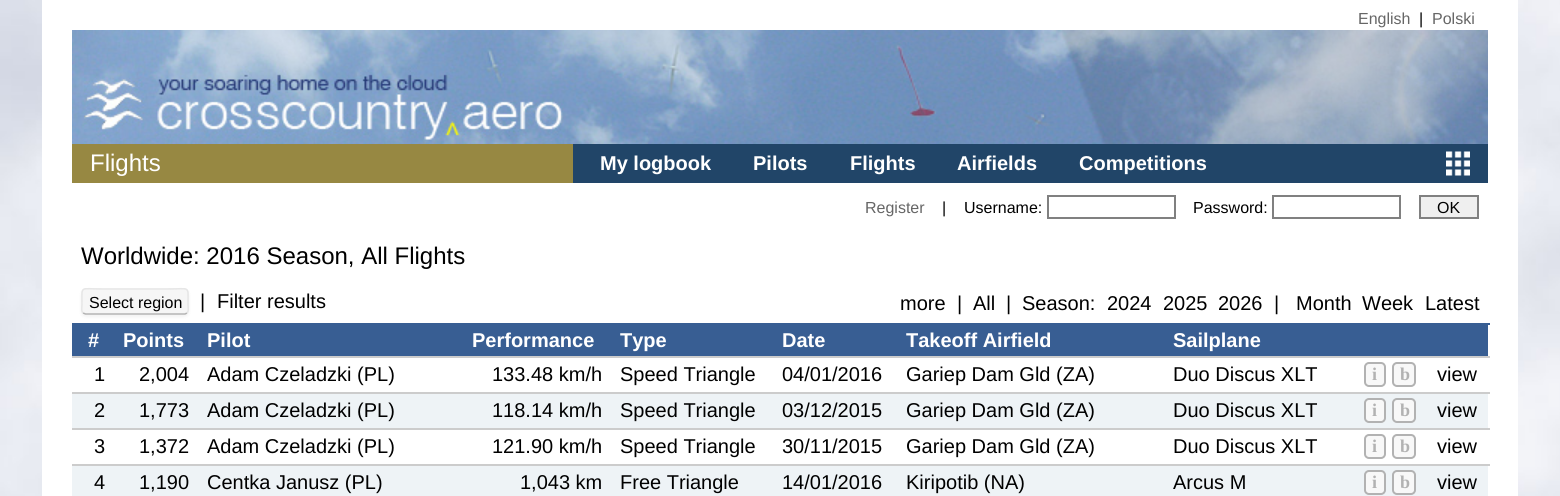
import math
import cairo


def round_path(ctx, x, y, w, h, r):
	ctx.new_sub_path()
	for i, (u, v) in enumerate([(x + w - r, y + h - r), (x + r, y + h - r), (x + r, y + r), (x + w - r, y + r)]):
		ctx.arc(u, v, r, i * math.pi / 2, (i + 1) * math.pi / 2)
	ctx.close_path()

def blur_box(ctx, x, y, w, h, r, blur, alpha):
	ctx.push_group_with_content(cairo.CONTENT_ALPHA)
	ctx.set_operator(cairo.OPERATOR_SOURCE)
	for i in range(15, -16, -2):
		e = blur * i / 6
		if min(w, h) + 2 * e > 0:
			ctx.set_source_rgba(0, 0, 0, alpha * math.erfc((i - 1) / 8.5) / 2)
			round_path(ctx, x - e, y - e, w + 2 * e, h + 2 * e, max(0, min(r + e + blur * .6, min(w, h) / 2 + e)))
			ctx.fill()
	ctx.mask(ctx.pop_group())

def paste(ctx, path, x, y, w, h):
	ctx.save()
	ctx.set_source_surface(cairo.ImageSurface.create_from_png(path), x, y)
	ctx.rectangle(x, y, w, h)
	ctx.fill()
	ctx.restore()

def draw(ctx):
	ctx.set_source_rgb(1, 1, 1)
	ctx.paint()
	paste(ctx, 'media/1.png', 0, 0, 1560, 496)
	ctx.set_source_rgb(1, 1, 1)
	ctx.rectangle(42, 0, 1476, 496)
	ctx.fill()
	ctx.select_font_face('Liberation Sans')
	ctx.set_font_size(16)
	ctx.set_source_rgb(0.4, 0.4, 0.4)
	ctx.move_to(1358, 24)
	ctx.show_text('English')
	ctx.set_source_rgb(0, 0, 0)
	ctx.move_to(1419, 24)
	ctx.show_text('|')
	ctx.set_source_rgb(0.4, 0.4, 0.4)
	ctx.move_to(1432, 24)
	ctx.show_text('Polski')
	paste(ctx, 'media/2.png', 72, 30, 1416, 114)
	ctx.set_source_rgb(0.592, 0.533, 0.259)
	ctx.rectangle(72, 144, 501, 39)
	ctx.fill()
	ctx.set_font_size(24)
	ctx.set_source_rgb(1, 1, 1)
	ctx.move_to(90, 171)
	ctx.show_text('Flights')
	ctx.set_source_rgb(0.129, 0.271, 0.408)
	ctx.rectangle(573, 144, 915, 39)
	ctx.fill()
	ctx.select_font_face('Liberation Sans', cairo.FONT_SLANT_NORMAL, cairo.FONT_WEIGHT_BOLD)
	ctx.set_font_size(20)
	ctx.set_source_rgb(1, 1, 1)
	for x, y, s in [
		(600, 170, 'My logbook'),
		(753, 170, 'Pilots'),
		(850, 170, 'Flights'),
		(957, 170, 'Airfields'),
		(1079, 170, 'Competitions'),
	]:
		ctx.move_to(x, y)
		ctx.show_text(s)
	paste(ctx, 'media/3.png', 1446, 151, 24, 25)
	ctx.select_font_face('Liberation Sans')
	ctx.set_font_size(16)
	ctx.set_source_rgb(0.4, 0.4, 0.4)
	ctx.move_to(865, 213)
	ctx.show_text('Register')
	ctx.set_source_rgb(0, 0, 0)
	ctx.move_to(942, 213)
	ctx.show_text('|')
	ctx.move_to(964, 213)
	ctx.show_text('Username:')
	ctx.rectangle(1048, 196, 127, 22)
	ctx.set_source_rgb(0.502, 0.502, 0.502)
	ctx.stroke()
	ctx.set_source_rgb(0, 0, 0)
	ctx.move_to(1193, 213)
	ctx.show_text('Password:')
	ctx.rectangle(1273, 196, 127, 22)
	ctx.set_source_rgb(0.502, 0.502, 0.502)
	ctx.stroke()
	ctx.set_source_rgb(0.937, 0.937, 0.937)
	ctx.rectangle(1420, 196, 58, 22)
	ctx.fill_preserve()
	ctx.set_source_rgb(0.502, 0.502, 0.502)
	ctx.stroke()
	ctx.set_source_rgb(0, 0, 0)
	ctx.move_to(1437, 213)
	ctx.show_text('OK')
	ctx.set_font_size(24)
	ctx.move_to(81, 264)
	ctx.show_text('Worldwide: 2016 Season, All Flights')
	ctx.set_source_rgb(0, 0, 0)
	blur_box(ctx, 81, 290, 108, 27, 5, 1.5, 0.05)
	ctx.set_source_rgb(0.961, 0.961, 0.961)
	round_path(ctx, 81, 288, 108, 27, 5)
	ctx.fill()
	ctx.new_path()
	ctx.move_to(187, 313)
	ctx.line_to(185, 314)
	ctx.line_to(102, 314)
	ctx.line_to(85.5, 314)
	ctx.line_to(83, 313)
	ctx.set_source_rgb(0.702, 0.702, 0.702)
	ctx.set_line_width(1.5)
	ctx.stroke()
	ctx.new_path()
	ctx.move_to(83, 313)
	ctx.curve_to(81, 311, 82, 307, 82, 304.5)
	ctx.curve_to(82, 285, 79.5, 289, 102, 289)
	ctx.line_to(168, 289)
	ctx.curve_to(190.5, 289, 188, 285, 188, 304.5)
	ctx.curve_to(188, 307, 189, 311, 187, 313)
	ctx.set_source_rgb(0.902, 0.902, 0.902)
	ctx.stroke()
	ctx.set_font_size(16)
	ctx.set_source_rgb(0, 0, 0)
	ctx.move_to(89, 308)
	ctx.show_text('Select region')
	ctx.set_font_size(20)
	for x, y, s in [
		(200, 308, '|'),
		(217, 308, 'Filter results'),
		(900, 310, 'more'),
		(957, 310, '|'),
		(973, 310, 'All'),
		(1006, 310, '|'),
		(1022, 310, 'Season:'),
		(1107, 310, '2024'),
		(1163, 310, '2025'),
		(1218, 310, '2026'),
		(1274, 310, '|'),
		(1296, 310, 'Month'),
		(1362, 310, 'Week'),
		(1425, 310, 'Latest'),
	]:
		ctx.move_to(x, y)
		ctx.show_text(s)
	ctx.set_source_rgb(0.22, 0.369, 0.576)
	ctx.rectangle(72, 323, 1418, 2)
	ctx.fill()
	ctx.set_source_rgb(0.8, 0.8, 0.8)
	ctx.rectangle(72, 356, 1418, 2)
	ctx.fill()
	ctx.set_source_rgb(0.22, 0.369, 0.576)
	ctx.rectangle(72, 325, 1416, 31)
	ctx.fill()
	ctx.select_font_face('Liberation Sans', cairo.FONT_SLANT_NORMAL, cairo.FONT_WEIGHT_BOLD)
	ctx.set_source_rgb(1, 1, 1)
	for x, y, s in [
		(88, 347, '#'),
		(123, 347, 'Points'),
		(207, 347, 'Pilot'),
		(472, 347, 'Performance'),
		(620, 347, 'Type'),
		(782, 347, 'Date'),
		(906, 347, 'Takeoff Airfield'),
		(1173, 347, 'Sailplane'),
	]:
		ctx.move_to(x, y)
		ctx.show_text(s)
	ctx.set_source_rgb(0.8, 0.8, 0.8)
	ctx.rectangle(72, 392, 1418, 2)
	ctx.fill()
	ctx.select_font_face('Liberation Sans')
	ctx.set_source_rgb(0, 0, 0)
	for x, y, s in [
		(94, 381, '1'),
		(139, 381, '2,004'),
		(207, 381, 'Adam Czeladzki (PL)'),
		(492, 381, '133.48 km/h'),
		(620, 381, 'Speed Triangle'),
		(782, 381, '04/01/2016'),
		(906, 381, 'Gariep Dam Gld (ZA)'),
		(1173, 381, 'Duo Discus XLT'),
	]:
		ctx.move_to(x, y)
		ctx.show_text(s)
	ctx.set_source_rgb(0.969, 0.969, 0.969)
	round_path(ctx, 1365, 363, 20, 23, 4)
	ctx.fill_preserve()
	ctx.set_source_rgb(0.698, 0.698, 0.698)
	ctx.set_line_width(2)
	ctx.stroke()
	ctx.select_font_face('Liberation Serif', cairo.FONT_SLANT_NORMAL, cairo.FONT_WEIGHT_BOLD)
	ctx.set_font_size(18)
	ctx.move_to(1372, 380)
	ctx.show_text('i')
	ctx.set_source_rgb(0.969, 0.969, 0.969)
	round_path(ctx, 1393, 363, 22, 23, 4)
	ctx.fill_preserve()
	ctx.set_source_rgb(0.698, 0.698, 0.698)
	ctx.stroke()
	ctx.move_to(1400, 380)
	ctx.show_text('b')
	ctx.select_font_face('Liberation Sans')
	ctx.set_font_size(20)
	ctx.set_source_rgb(0, 0, 0)
	ctx.move_to(1437, 381)
	ctx.show_text('view')
	ctx.set_source_rgb(0.933, 0.953, 0.961)
	ctx.rectangle(72, 394, 1416, 34)
	ctx.fill()
	ctx.set_source_rgb(0.8, 0.8, 0.8)
	ctx.rectangle(72, 428, 1418, 2)
	ctx.fill()
	ctx.set_source_rgb(0, 0, 0)
	for x, y, s in [
		(94, 417, '2'),
		(139, 417, '1,773'),
		(207, 417, 'Adam Czeladzki (PL)'),
		(492, 417, '118.14 km/h'),
		(620, 417, 'Speed Triangle'),
		(782, 417, '03/12/2015'),
		(906, 417, 'Gariep Dam Gld (ZA)'),
		(1173, 417, 'Duo Discus XLT'),
	]:
		ctx.move_to(x, y)
		ctx.show_text(s)
	ctx.set_source_rgb(0.969, 0.969, 0.969)
	round_path(ctx, 1365, 399, 20, 23, 4)
	ctx.fill_preserve()
	ctx.set_source_rgb(0.698, 0.698, 0.698)
	ctx.stroke()
	ctx.select_font_face('Liberation Serif', cairo.FONT_SLANT_NORMAL, cairo.FONT_WEIGHT_BOLD)
	ctx.set_font_size(18)
	ctx.move_to(1372, 416)
	ctx.show_text('i')
	ctx.set_source_rgb(0.969, 0.969, 0.969)
	round_path(ctx, 1393, 399, 22, 23, 4)
	ctx.fill_preserve()
	ctx.set_source_rgb(0.698, 0.698, 0.698)
	ctx.stroke()
	ctx.move_to(1400, 416)
	ctx.show_text('b')
	ctx.select_font_face('Liberation Sans')
	ctx.set_font_size(20)
	ctx.set_source_rgb(0, 0, 0)
	ctx.move_to(1437, 417)
	ctx.show_text('view')
	ctx.set_source_rgb(0.8, 0.8, 0.8)
	ctx.rectangle(72, 464, 1418, 2)
	ctx.fill()
	ctx.set_source_rgb(0, 0, 0)
	for x, y, s in [
		(94, 453, '3'),
		(139, 453, '1,372'),
		(207, 453, 'Adam Czeladzki (PL)'),
		(492, 453, '121.90 km/h'),
		(620, 453, 'Speed Triangle'),
		(782, 453, '30/11/2015'),
		(906, 453, 'Gariep Dam Gld (ZA)'),
		(1173, 453, 'Duo Discus XLT'),
	]:
		ctx.move_to(x, y)
		ctx.show_text(s)
	ctx.set_source_rgb(0.969, 0.969, 0.969)
	round_path(ctx, 1365, 435, 20, 23, 4)
	ctx.fill_preserve()
	ctx.set_source_rgb(0.698, 0.698, 0.698)
	ctx.stroke()
	ctx.select_font_face('Liberation Serif', cairo.FONT_SLANT_NORMAL, cairo.FONT_WEIGHT_BOLD)
	ctx.set_font_size(18)
	ctx.move_to(1372, 452)
	ctx.show_text('i')
	ctx.set_source_rgb(0.969, 0.969, 0.969)
	round_path(ctx, 1393, 435, 22, 23, 4)
	ctx.fill_preserve()
	ctx.set_source_rgb(0.698, 0.698, 0.698)
	ctx.stroke()
	ctx.move_to(1400, 452)
	ctx.show_text('b')
	ctx.select_font_face('Liberation Sans')
	ctx.set_font_size(20)
	ctx.set_source_rgb(0, 0, 0)
	ctx.move_to(1437, 453)
	ctx.show_text('view')
	ctx.set_source_rgb(0.933, 0.953, 0.961)
	ctx.rectangle(72, 466, 1416, 30)
	ctx.fill()
	ctx.set_source_rgb(0, 0, 0)
	for x, y, s in [
		(94, 489, '4'),
		(139, 489, '1,190'),
		(207, 489, 'Centka Janusz (PL)'),
		(520, 489, '1,043 km'),
		(620, 489, 'Free Triangle'),
		(782, 489, '14/01/2016'),
		(906, 489, 'Kiripotib (NA)'),
		(1173, 489, 'Arcus M'),
	]:
		ctx.move_to(x, y)
		ctx.show_text(s)
	ctx.set_source_rgb(0.969, 0.969, 0.969)
	round_path(ctx, 1365, 471, 20, 23, 4)
	ctx.fill_preserve()
	ctx.set_source_rgb(0.698, 0.698, 0.698)
	ctx.stroke()
	ctx.select_font_face('Liberation Serif', cairo.FONT_SLANT_NORMAL, cairo.FONT_WEIGHT_BOLD)
	ctx.set_font_size(18)
	ctx.move_to(1372, 488)
	ctx.show_text('i')
	ctx.set_source_rgb(0.969, 0.969, 0.969)
	round_path(ctx, 1393, 471, 22, 23, 4)
	ctx.fill_preserve()
	ctx.set_source_rgb(0.698, 0.698, 0.698)
	ctx.stroke()
	ctx.move_to(1400, 488)
	ctx.show_text('b')
	ctx.select_font_face('Liberation Sans')
	ctx.set_font_size(20)
	ctx.set_source_rgb(0, 0, 0)
	ctx.move_to(1437, 489)
	ctx.show_text('view')


surface = cairo.ImageSurface(cairo.FORMAT_RGB24, 1560, 496)
ctx = cairo.Context(surface)
options = cairo.FontOptions()
options.set_hint_metrics(cairo.HINT_METRICS_OFF)
options.set_hint_style(cairo.HINT_STYLE_NONE)
ctx.set_font_options(options)
ctx.set_miter_limit(4)
draw(ctx)
surface.write_to_png('image.png')
